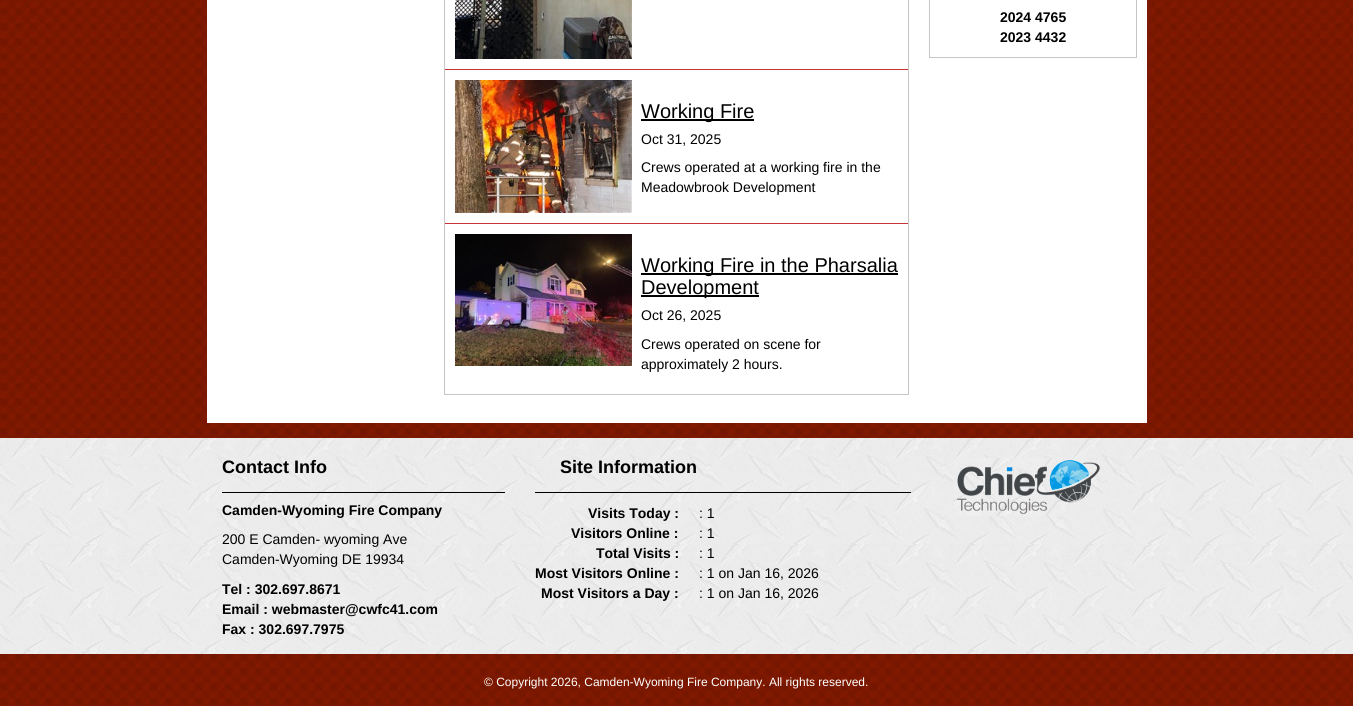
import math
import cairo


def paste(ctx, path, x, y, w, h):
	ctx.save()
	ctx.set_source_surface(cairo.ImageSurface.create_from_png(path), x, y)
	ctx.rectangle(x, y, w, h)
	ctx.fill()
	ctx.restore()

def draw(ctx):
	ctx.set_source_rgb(1, 1, 1)
	ctx.paint()
	paste(ctx, 'media/1.png', 0, 0, 1353, 706)
	ctx.set_source_rgb(1, 1, 1)
	ctx.rectangle(207, 0, 940, 423)
	ctx.fill()
	ctx.rectangle(929.5, -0.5, 207, 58)
	ctx.set_source_rgb(0.773, 0.773, 0.773)
	ctx.set_line_width(1)
	ctx.stroke()
	ctx.select_font_face('Liberation Sans', cairo.FONT_SLANT_NORMAL, cairo.FONT_WEIGHT_BOLD)
	ctx.set_font_size(14)
	ctx.set_source_rgb(0, 0, 0)
	ctx.move_to(1000, 22)
	ctx.show_text('2024 4765')
	ctx.move_to(1000, 42)
	ctx.show_text('2023 4432')
	ctx.rectangle(444.5, -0.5, 464, 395)
	ctx.set_source_rgb(0.773, 0.773, 0.773)
	ctx.stroke()
	paste(ctx, 'media/2.png', 455, 0, 177, 59)
	ctx.set_source_rgb(0.776, 0.2, 0.212)
	ctx.rectangle(445, 69, 463, 1)
	ctx.fill()
	paste(ctx, 'media/3.png', 455, 80, 177, 133)
	ctx.set_source_rgb(0, 0, 0)
	ctx.rectangle(641, 119, 113, 2)
	ctx.fill()
	ctx.select_font_face('Liberation Sans')
	ctx.set_font_size(20)
	ctx.move_to(641, 118)
	ctx.show_text('Working Fire')
	ctx.set_font_size(14)
	for x, y, s in [
		(641, 144, 'Oct 31, 2025'),
		(641, 172, 'Crews operated at a working fire in the'),
		(641, 192, 'Meadowbrook Development'),
	]:
		ctx.move_to(x, y)
		ctx.show_text(s)
	ctx.set_source_rgb(0.776, 0.2, 0.212)
	ctx.rectangle(445, 223, 463, 1)
	ctx.fill()
	paste(ctx, 'media/4.png', 455, 234, 177, 132)
	ctx.set_source_rgb(0, 0, 0)
	ctx.rectangle(641, 273, 257, 2)
	ctx.fill()
	ctx.set_font_size(20)
	ctx.move_to(641, 272)
	ctx.show_text('Working Fire in the Pharsalia')
	ctx.rectangle(641, 295, 118, 2)
	ctx.fill()
	ctx.move_to(641, 294)
	ctx.show_text('Development')
	ctx.set_font_size(14)
	for x, y, s in [
		(641, 320, 'Oct 26, 2025'),
		(641, 349, 'Crews operated on scene for'),
		(641, 369, 'approximately 2 hours.'),
	]:
		ctx.move_to(x, y)
		ctx.show_text(s)
	paste(ctx, 'media/5.png', 0, 438, 1353, 216)
	ctx.rectangle(222, 492, 283, 1)
	ctx.fill()
	ctx.select_font_face('Liberation Sans', cairo.FONT_SLANT_NORMAL, cairo.FONT_WEIGHT_BOLD)
	ctx.set_font_size(18)
	ctx.move_to(222, 473)
	ctx.show_text('Contact Info')
	ctx.set_font_size(14)
	ctx.move_to(222, 515)
	ctx.show_text('Camden-Wyoming Fire Company')
	ctx.select_font_face('Liberation Sans')
	ctx.move_to(222, 544)
	ctx.show_text('200 E Camden- wyoming Ave')
	ctx.move_to(222, 564)
	ctx.show_text('Camden-Wyoming DE 19934')
	ctx.select_font_face('Liberation Sans', cairo.FONT_SLANT_NORMAL, cairo.FONT_WEIGHT_BOLD)
	for x, y, s in [
		(222, 594, 'Tel : 302.697.8671'),
		(222, 614, 'Email : webmaster@cwfc41.com'),
		(222, 634, 'Fax : 302.697.7975'),
	]:
		ctx.move_to(x, y)
		ctx.show_text(s)
	ctx.rectangle(535, 492, 376, 1)
	ctx.fill()
	ctx.set_font_size(18)
	ctx.move_to(560, 473)
	ctx.show_text('Site Information')
	ctx.set_font_size(14)
	for x, y, s in [
		(588, 518, 'Visits Today :'),
		(571, 538, 'Visitors Online :'),
		(596, 558, 'Total Visits :'),
		(535, 578, 'Most Visitors Online :'),
		(541, 598, 'Most Visitors a Day :'),
	]:
		ctx.move_to(x, y)
		ctx.show_text(s)
	ctx.select_font_face('Liberation Sans')
	for x, y, s in [
		(699, 518, ': 1'),
		(699, 538, ': 1'),
		(699, 558, ': 1'),
		(699, 578, ': 1 on Jan 16, 2026'),
		(699, 598, ': 1 on Jan 16, 2026'),
	]:
		ctx.move_to(x, y)
		ctx.show_text(s)
	paste(ctx, 'media/6.png', 954, 458, 149, 58)
	ctx.set_font_size(12)
	ctx.set_source_rgb(1, 1, 1)
	ctx.move_to(484, 686)
	ctx.show_text('© Copyright 2026, Camden-Wyoming Fire Company. All rights reserved.')


surface = cairo.ImageSurface(cairo.FORMAT_RGB24, 1353, 706)
ctx = cairo.Context(surface)
options = cairo.FontOptions()
options.set_hint_metrics(cairo.HINT_METRICS_OFF)
options.set_hint_style(cairo.HINT_STYLE_NONE)
ctx.set_font_options(options)
ctx.set_miter_limit(4)
draw(ctx)
surface.write_to_png('image.png')
